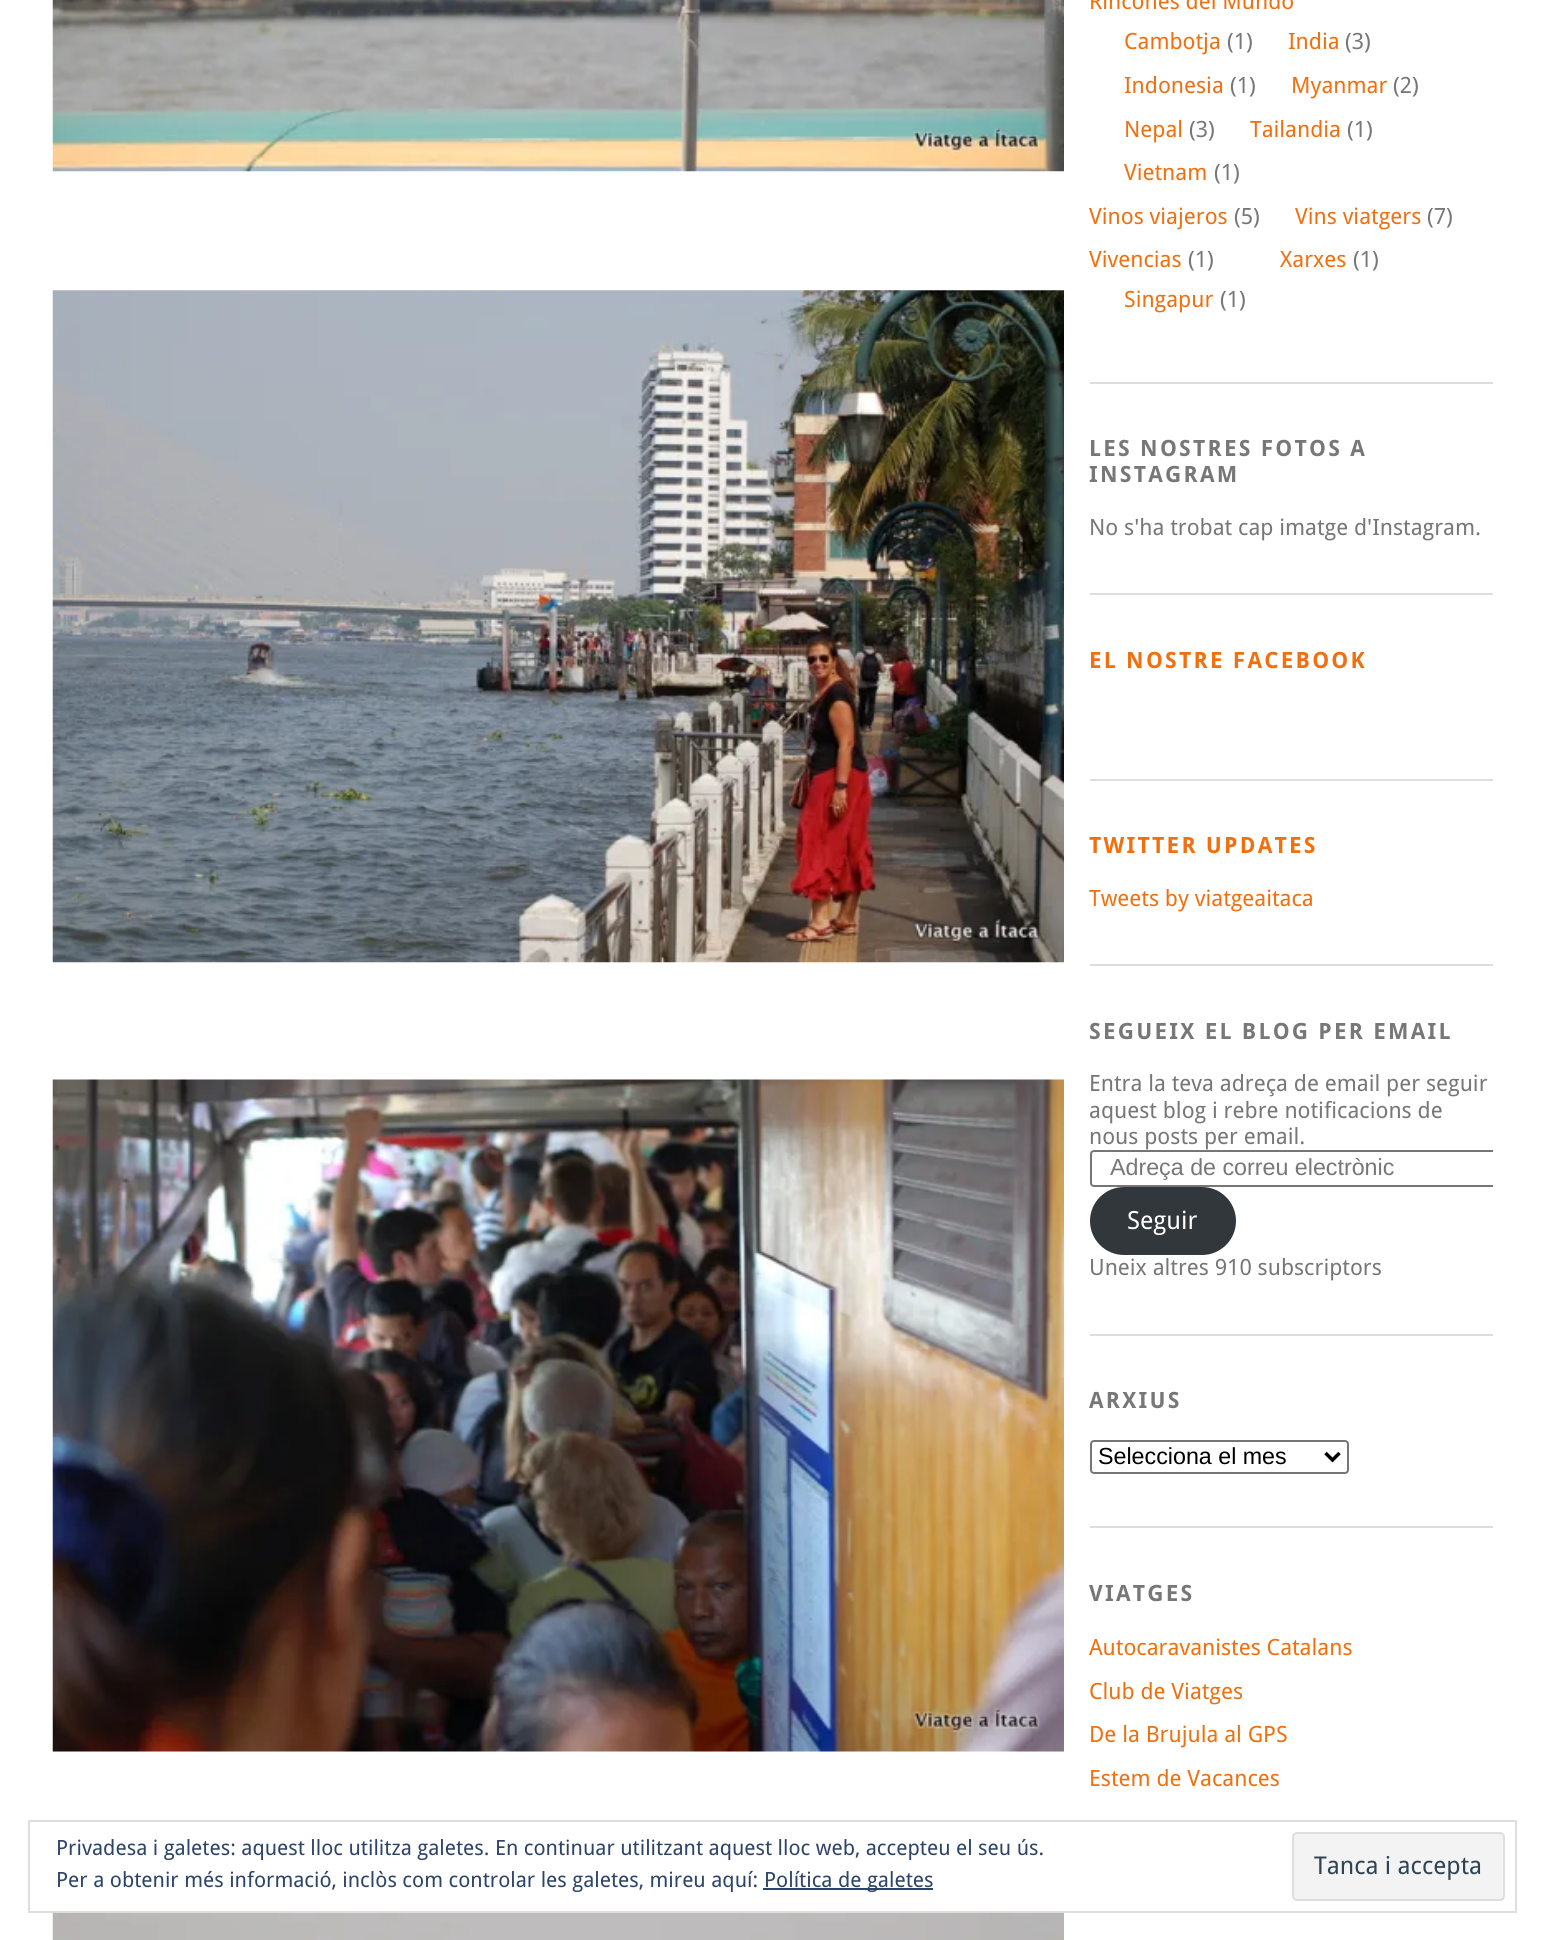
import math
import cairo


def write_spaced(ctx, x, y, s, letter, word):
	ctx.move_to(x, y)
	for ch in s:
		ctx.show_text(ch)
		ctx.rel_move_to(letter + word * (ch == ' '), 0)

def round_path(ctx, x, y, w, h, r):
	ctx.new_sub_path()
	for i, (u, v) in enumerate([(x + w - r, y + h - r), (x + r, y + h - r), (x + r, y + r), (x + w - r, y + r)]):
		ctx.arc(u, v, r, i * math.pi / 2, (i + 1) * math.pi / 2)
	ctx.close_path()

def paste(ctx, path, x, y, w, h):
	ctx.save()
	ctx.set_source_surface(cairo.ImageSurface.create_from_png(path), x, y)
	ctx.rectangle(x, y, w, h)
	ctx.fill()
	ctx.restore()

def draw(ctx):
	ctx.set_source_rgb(1, 1, 1)
	ctx.paint()
	paste(ctx, 'media/1.png', 52, 0, 1012, 172)
	paste(ctx, 'media/2.png', 52, 290, 1012, 673)
	paste(ctx, 'media/3.png', 52, 1079, 1012, 673)
	paste(ctx, 'media/4.png', 52, 1913, 1012, 27)
	ctx.set_source_rgb(0.867, 0.867, 0.867)
	ctx.rectangle(1090, 382, 403, 2)
	ctx.fill()
	ctx.select_font_face('Droid Sans')
	ctx.set_font_size(22.4)
	ctx.set_source_rgb(0.941, 0.439, 0.059)
	ctx.move_to(1089, 9)
	ctx.show_text('Rincones del Mundo')
	ctx.move_to(1124, 49)
	ctx.show_text('Cambotja')
	ctx.set_source_rgb(0.467, 0.467, 0.467)
	ctx.move_to(1227, 49)
	ctx.show_text('(1)')
	ctx.set_source_rgb(0.941, 0.439, 0.059)
	ctx.move_to(1288, 49)
	ctx.show_text('India')
	ctx.set_source_rgb(0.467, 0.467, 0.467)
	ctx.move_to(1345, 49)
	ctx.show_text('(3)')
	ctx.set_source_rgb(0.941, 0.439, 0.059)
	ctx.move_to(1124, 93)
	ctx.show_text('Indonesia')
	ctx.set_source_rgb(0.467, 0.467, 0.467)
	ctx.move_to(1230, 93)
	ctx.show_text('(1)')
	ctx.set_source_rgb(0.941, 0.439, 0.059)
	ctx.move_to(1291, 93)
	ctx.show_text('Myanmar')
	ctx.set_source_rgb(0.467, 0.467, 0.467)
	ctx.move_to(1393, 93)
	ctx.show_text('(2)')
	ctx.set_source_rgb(0.941, 0.439, 0.059)
	ctx.move_to(1124, 137)
	ctx.show_text('Nepal')
	ctx.set_source_rgb(0.467, 0.467, 0.467)
	ctx.move_to(1189, 137)
	ctx.show_text('(3)')
	ctx.set_source_rgb(0.941, 0.439, 0.059)
	ctx.move_to(1250, 137)
	ctx.show_text('Tailandia')
	ctx.set_source_rgb(0.467, 0.467, 0.467)
	ctx.move_to(1347, 137)
	ctx.show_text('(1)')
	ctx.set_source_rgb(0.941, 0.439, 0.059)
	ctx.move_to(1124, 180)
	ctx.show_text('Vietnam')
	ctx.set_source_rgb(0.467, 0.467, 0.467)
	ctx.move_to(1214, 180)
	ctx.show_text('(1)')
	ctx.set_source_rgb(0.941, 0.439, 0.059)
	ctx.move_to(1089, 224)
	ctx.show_text('Vinos viajeros')
	ctx.set_source_rgb(0.467, 0.467, 0.467)
	ctx.move_to(1234, 224)
	ctx.show_text('(5)')
	ctx.set_source_rgb(0.941, 0.439, 0.059)
	ctx.move_to(1295, 224)
	ctx.show_text('Vins viatgers')
	ctx.set_source_rgb(0.467, 0.467, 0.467)
	ctx.move_to(1427, 224)
	ctx.show_text('(7)')
	ctx.set_source_rgb(0.941, 0.439, 0.059)
	ctx.move_to(1089, 267)
	ctx.show_text('Vivencias')
	ctx.set_source_rgb(0.467, 0.467, 0.467)
	ctx.move_to(1188, 267)
	ctx.show_text('(1)')
	ctx.set_source_rgb(0.941, 0.439, 0.059)
	ctx.move_to(1124, 307)
	ctx.show_text('Singapur')
	ctx.set_source_rgb(0.467, 0.467, 0.467)
	ctx.move_to(1220, 307)
	ctx.show_text('(1)')
	ctx.set_source_rgb(0.941, 0.439, 0.059)
	ctx.move_to(1280, 267)
	ctx.show_text('Xarxes')
	ctx.set_source_rgb(0.467, 0.467, 0.467)
	ctx.move_to(1353, 267)
	ctx.show_text('(1)')
	ctx.set_source_rgb(0.867, 0.867, 0.867)
	ctx.rectangle(1090, 593, 403, 2)
	ctx.fill()
	ctx.select_font_face('Droid Sans', cairo.FONT_SLANT_NORMAL, cairo.FONT_WEIGHT_BOLD)
	ctx.set_source_rgb(0.467, 0.467, 0.467)
	write_spaced(ctx, 1089, 456, 'LES NOSTRES FOTOS A', 2.25, 0)
	write_spaced(ctx, 1089, 482, 'INSTAGRAM', 2.25, 0)
	ctx.select_font_face('Droid Sans')
	ctx.move_to(1089, 535)
	ctx.show_text('No s\'ha trobat cap imatge d\'Instagram.')
	ctx.set_source_rgb(0.867, 0.867, 0.867)
	ctx.rectangle(1090, 779, 403, 2)
	ctx.fill()
	ctx.select_font_face('Droid Sans', cairo.FONT_SLANT_NORMAL, cairo.FONT_WEIGHT_BOLD)
	ctx.set_source_rgb(0.941, 0.439, 0.059)
	write_spaced(ctx, 1089, 668, 'EL NOSTRE FACEBOOK', 2.25, 0)
	ctx.set_source_rgb(0.867, 0.867, 0.867)
	ctx.rectangle(1090, 964, 403, 2)
	ctx.fill()
	ctx.set_source_rgb(0.941, 0.439, 0.059)
	write_spaced(ctx, 1089, 853, 'TWITTER UPDATES', 2.25, 0)
	ctx.select_font_face('Droid Sans')
	ctx.move_to(1089, 906)
	ctx.show_text('Tweets by viatgeaitaca')
	ctx.set_source_rgb(0.867, 0.867, 0.867)
	ctx.rectangle(1090, 1334, 403, 2)
	ctx.fill()
	ctx.select_font_face('Droid Sans', cairo.FONT_SLANT_NORMAL, cairo.FONT_WEIGHT_BOLD)
	ctx.set_source_rgb(0.467, 0.467, 0.467)
	write_spaced(ctx, 1089, 1039, 'SEGUEIX EL BLOG PER EMAIL', 2.25, 0)
	ctx.select_font_face('Droid Sans')
	for x, y, s in [
		(1089, 1091, 'Entra la teva adreça de email per seguir'),
		(1089, 1118, 'aquest blog i rebre notificacions de'),
		(1089, 1144, 'nous posts per email.'),
	]:
		ctx.move_to(x, y)
		ctx.show_text(s)
	ctx.save()
	ctx.rectangle(1090, 1019, 403, 315)
	ctx.clip()
	round_path(ctx, 1091, 1151, 422, 35, 3)
	ctx.set_source_rgb(0.463, 0.463, 0.463)
	ctx.stroke()
	ctx.restore()
	ctx.select_font_face('Liberation Sans')
	ctx.set_font_size(23.25)
	ctx.move_to(1110, 1175)
	ctx.show_text('Adreça de correu electrònic')
	ctx.set_source_rgb(0.196, 0.216, 0.235)
	round_path(ctx, 1090, 1187, 146, 68, 34)
	ctx.fill()
	ctx.select_font_face('Droid Sans')
	ctx.set_font_size(25)
	ctx.set_source_rgb(1, 1, 1)
	ctx.move_to(1127, 1229)
	ctx.show_text('Seguir')
	ctx.set_font_size(22.4)
	ctx.set_source_rgb(0.467, 0.467, 0.467)
	ctx.move_to(1089, 1275)
	ctx.show_text('Uneix altres 910 subscriptors')
	ctx.set_source_rgb(0.867, 0.867, 0.867)
	ctx.rectangle(1090, 1526, 403, 2)
	ctx.fill()
	ctx.select_font_face('Droid Sans', cairo.FONT_SLANT_NORMAL, cairo.FONT_WEIGHT_BOLD)
	ctx.set_source_rgb(0.467, 0.467, 0.467)
	write_spaced(ctx, 1089, 1408, 'ARXIUS', 2.25, 0)
	round_path(ctx, 1091, 1441, 257, 32, 3)
	ctx.set_source_rgb(0.463, 0.463, 0.463)
	ctx.stroke()
	ctx.new_path()
	ctx.move_to(1325.5, 1453)
	ctx.line_to(1332.5, 1460)
	ctx.line_to(1339.5, 1453)
	ctx.set_source_rgb(0, 0, 0)
	ctx.set_line_width(3.5)
	ctx.stroke()
	ctx.select_font_face('Liberation Sans')
	ctx.set_font_size(23.25)
	ctx.move_to(1098, 1464)
	ctx.show_text('Selecciona el mes')
	ctx.select_font_face('Droid Sans', cairo.FONT_SLANT_NORMAL, cairo.FONT_WEIGHT_BOLD)
	ctx.set_font_size(22.4)
	ctx.set_source_rgb(0.467, 0.467, 0.467)
	write_spaced(ctx, 1089, 1601, 'VIATGES', 2.25, 0)
	ctx.select_font_face('Droid Sans')
	ctx.set_source_rgb(0.941, 0.439, 0.059)
	for x, y, s in [
		(1089, 1655, 'Autocaravanistes Catalans'),
		(1089, 1699, 'Club de Viatges'),
		(1089, 1742, 'De la Brujula al GPS'),
		(1089, 1786, 'Estem de Vacances'),
	]:
		ctx.move_to(x, y)
		ctx.show_text(s)
	ctx.rectangle(29, 1821, 1487, 91)
	ctx.set_source_rgb(0.871, 0.871, 0.871)
	ctx.set_line_width(2)
	ctx.stroke()
	ctx.set_font_size(21)
	ctx.set_source_rgb(0.18, 0.267, 0.404)
	ctx.move_to(56, 1855)
	ctx.show_text('Privadesa i galetes: aquest lloc utilitza galetes. En continuar utilitzant aquest lloc web, accepteu el seu ús.')
	ctx.move_to(56, 1887)
	ctx.show_text('Per a obtenir més informació, inclòs com controlar les galetes, mireu aquí:')
	ctx.rectangle(763, 1888, 170, 2)
	ctx.fill()
	ctx.move_to(764, 1887)
	ctx.show_text('Política de galetes')
	ctx.set_source_rgb(0.953, 0.953, 0.953)
	round_path(ctx, 1293, 1833, 211, 67, 4)
	ctx.fill_preserve()
	ctx.set_source_rgb(0.871, 0.871, 0.871)
	ctx.stroke()
	ctx.set_font_size(24.5)
	ctx.set_source_rgb(0.18, 0.267, 0.325)
	ctx.move_to(1314, 1874)
	ctx.show_text('Tanca i accepta')


surface = cairo.ImageSurface(cairo.FORMAT_RGB24, 1544, 1940)
ctx = cairo.Context(surface)
options = cairo.FontOptions()
options.set_hint_metrics(cairo.HINT_METRICS_OFF)
options.set_hint_style(cairo.HINT_STYLE_NONE)
ctx.set_font_options(options)
ctx.set_miter_limit(4)
draw(ctx)
surface.write_to_png('image.png')
